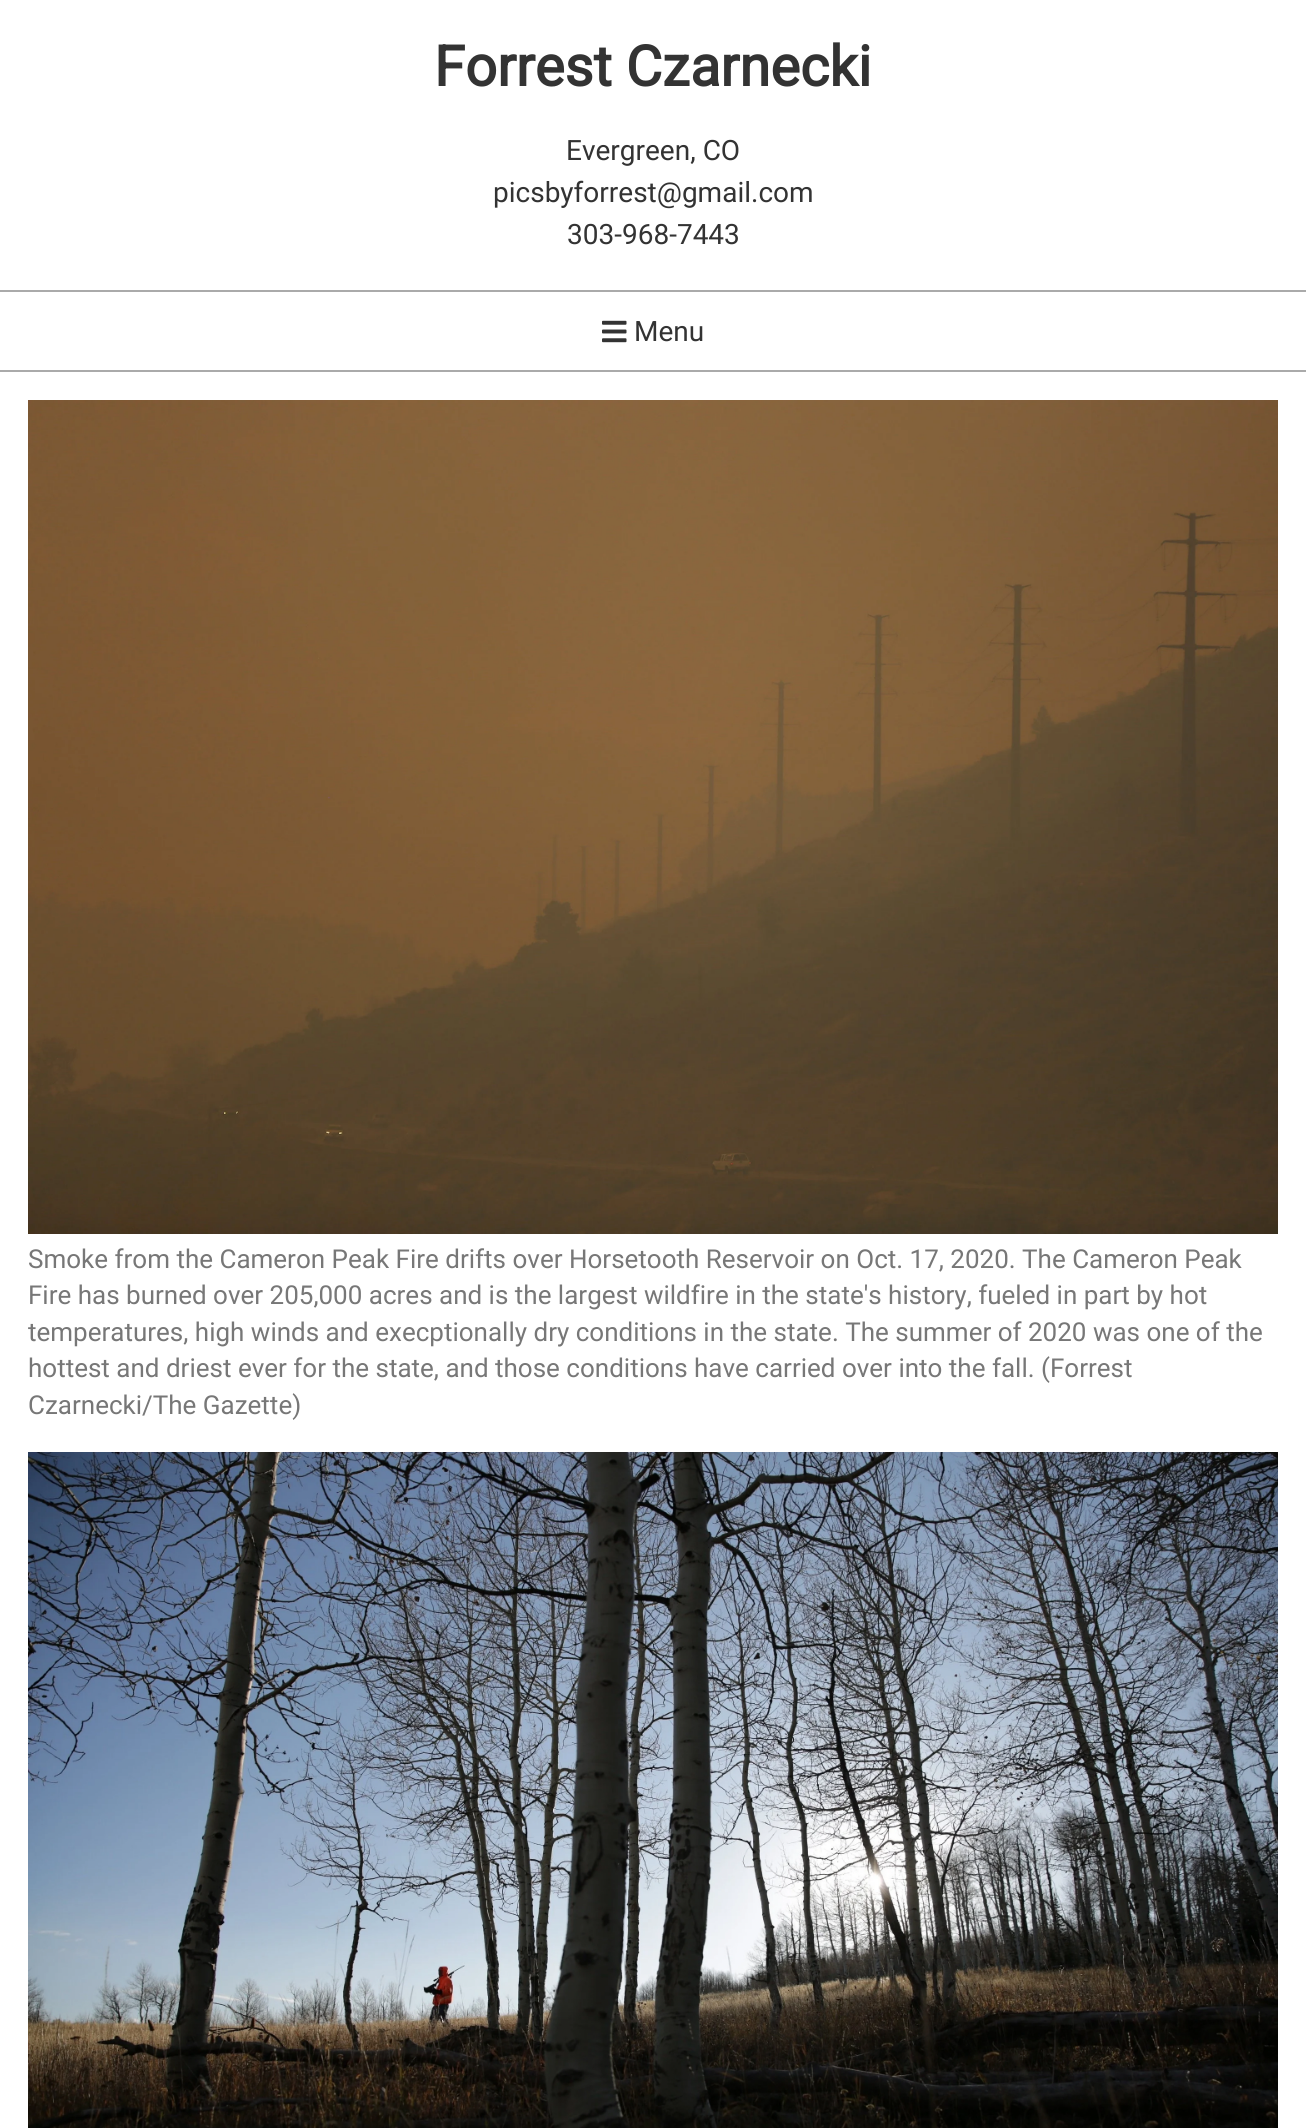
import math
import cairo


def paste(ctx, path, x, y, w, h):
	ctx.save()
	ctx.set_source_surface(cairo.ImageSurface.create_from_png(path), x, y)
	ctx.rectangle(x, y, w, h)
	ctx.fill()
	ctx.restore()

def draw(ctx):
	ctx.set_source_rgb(1, 1, 1)
	ctx.paint()
	ctx.select_font_face('Roboto', cairo.FONT_SLANT_NORMAL, cairo.FONT_WEIGHT_BOLD)
	ctx.set_font_size(56)
	ctx.set_source_rgb(0.2, 0.2, 0.2)
	ctx.move_to(434, 86)
	ctx.show_text('Forrest Czarnecki')
	ctx.select_font_face('Roboto')
	ctx.set_font_size(28)
	for x, y, s in [
		(566, 160, 'Evergreen, CO'),
		(493, 202, 'picsbyforrest@gmail.com'),
		(567, 244, '303-968-7443'),
	]:
		ctx.move_to(x, y)
		ctx.show_text(s)
	ctx.set_source_rgb(0.667, 0.667, 0.667)
	ctx.rectangle(0, 290, 1306, 2)
	ctx.fill()
	ctx.rectangle(0, 370, 1306, 2)
	ctx.fill()
	paste(ctx, 'media/1.png', 602, 320, 25, 23)
	ctx.set_source_rgb(0.2, 0.2, 0.2)
	ctx.move_to(634, 341)
	ctx.show_text('Menu')
	paste(ctx, 'media/2.png', 28, 400, 1250, 834)
	ctx.set_font_size(26)
	ctx.set_source_rgb(0.467, 0.467, 0.467)
	for x, y, s in [
		(28, 1268, 'Smoke from the Cameron Peak Fire drifts over Horsetooth Reservoir on Oct. 17, 2020. The Cameron Peak'),
		(28, 1304, 'Fire has burned over 205,000 acres and is the largest wildfire in the state\'s history, fueled in part by hot'),
		(28, 1341, 'temperatures, high winds and execptionally dry conditions in the state. The summer of 2020 was one of the'),
		(28, 1377, 'hottest and driest ever for the state, and those conditions have carried over into the fall. (Forrest'),
		(28, 1414, 'Czarnecki/The Gazette)'),
	]:
		ctx.move_to(x, y)
		ctx.show_text(s)
	paste(ctx, 'media/3.png', 28, 1452, 1250, 676)


surface = cairo.ImageSurface(cairo.FORMAT_RGB24, 1306, 2128)
ctx = cairo.Context(surface)
options = cairo.FontOptions()
options.set_hint_metrics(cairo.HINT_METRICS_OFF)
options.set_hint_style(cairo.HINT_STYLE_NONE)
ctx.set_font_options(options)
ctx.set_miter_limit(4)
draw(ctx)
surface.write_to_png('image.png')
